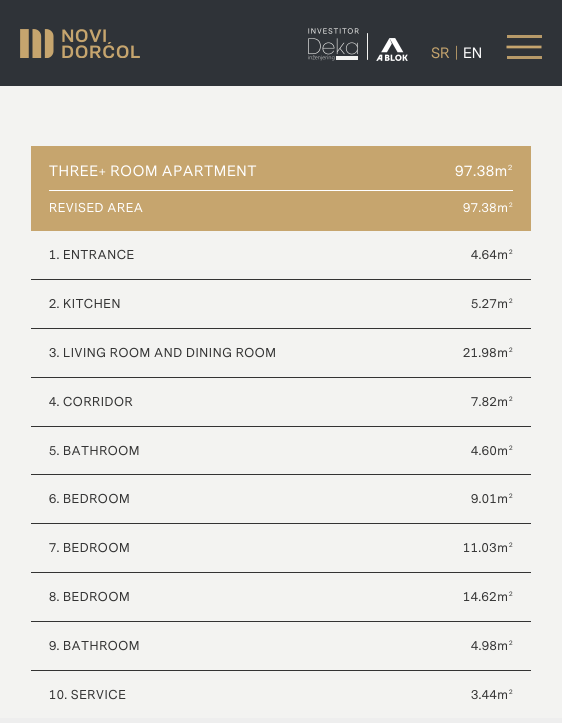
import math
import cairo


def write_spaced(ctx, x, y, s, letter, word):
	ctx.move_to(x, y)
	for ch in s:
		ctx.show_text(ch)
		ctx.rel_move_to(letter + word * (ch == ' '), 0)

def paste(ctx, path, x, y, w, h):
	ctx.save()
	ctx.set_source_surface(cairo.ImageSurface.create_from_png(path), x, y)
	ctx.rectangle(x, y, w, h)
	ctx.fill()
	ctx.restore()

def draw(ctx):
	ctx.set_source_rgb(0.184, 0.2, 0.22)
	ctx.paint()
	paste(ctx, 'media/1.png', 20, 29, 120, 29)
	paste(ctx, 'media/2.png', 308, 28, 60, 33)
	paste(ctx, 'media/3.png', 376, 38, 32, 23)
	ctx.select_font_face('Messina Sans')
	ctx.set_font_size(14)
	ctx.set_source_rgb(0.776, 0.647, 0.431)
	ctx.move_to(431, 58)
	ctx.show_text('SR')
	ctx.select_font_face('Messina Sans Light')
	ctx.move_to(455, 58)
	ctx.show_text('|')
	ctx.select_font_face('Messina Sans')
	ctx.set_source_rgb(1, 1, 1)
	ctx.move_to(463, 58)
	ctx.show_text('EN')
	ctx.set_source_rgb(0.718, 0.604, 0.412)
	ctx.rectangle(507, 35, 35, 3)
	ctx.fill()
	ctx.new_path()
	ctx.move_to(506.5, 47)
	ctx.line_to(541.5, 47)
	ctx.set_source_rgb(0.776, 0.647, 0.431)
	ctx.set_line_width(2.7)
	ctx.stroke()
	ctx.set_source_rgb(0.718, 0.604, 0.412)
	ctx.rectangle(507, 56, 35, 3)
	ctx.fill()
	ctx.set_source_rgb(0.953, 0.953, 0.945)
	ctx.rectangle(0, 86, 562, 632)
	ctx.fill()
	ctx.set_source_rgb(0.776, 0.647, 0.431)
	ctx.rectangle(31, 146, 500, 85)
	ctx.fill()
	ctx.set_source_rgb(1, 1, 1)
	write_spaced(ctx, 49, 176, 'THREE+ ROOM APARTMENT', 0.7, 0)
	write_spaced(ctx, 455, 176, '97.38m', 0.7, 0)
	ctx.set_font_size(7)
	write_spaced(ctx, 508, 170, '2', 0.7, 0)
	ctx.rectangle(49, 190, 464, 1)
	ctx.fill()
	ctx.set_font_size(12)
	write_spaced(ctx, 49, 212, 'REVISED AREA', 0.6, 0)
	write_spaced(ctx, 463, 212, '97.38m', 0.6, 0)
	ctx.set_font_size(6)
	write_spaced(ctx, 509, 207, '2', 0.6, 0)
	ctx.set_source_rgb(0.2, 0.2, 0.2)
	ctx.rectangle(31, 279, 500, 1)
	ctx.fill()
	ctx.set_font_size(12)
	write_spaced(ctx, 49, 259, '1. ENTRANCE', 0.6, 0)
	write_spaced(ctx, 471, 259, '4.64m', 0.6, 0)
	ctx.set_font_size(6)
	write_spaced(ctx, 509, 254, '2', 0.6, 0)
	ctx.rectangle(31, 328, 500, 1)
	ctx.fill()
	ctx.set_font_size(12)
	write_spaced(ctx, 49, 308, '2. KITCHEN', 0.6, 0)
	write_spaced(ctx, 471, 308, '5.27m', 0.6, 0)
	ctx.set_font_size(6)
	write_spaced(ctx, 509, 303, '2', 0.6, 0)
	ctx.rectangle(31, 377, 500, 1)
	ctx.fill()
	ctx.set_font_size(12)
	write_spaced(ctx, 49, 357, '3. LIVING ROOM AND DINING ROOM', 0.6, 0)
	write_spaced(ctx, 463, 357, '21.98m', 0.6, 0)
	ctx.set_font_size(6)
	write_spaced(ctx, 509, 352, '2', 0.6, 0)
	ctx.rectangle(31, 426, 500, 1)
	ctx.fill()
	ctx.set_font_size(12)
	write_spaced(ctx, 49, 406, '4. CORRIDOR', 0.6, 0)
	write_spaced(ctx, 471, 406, '7.82m', 0.6, 0)
	ctx.set_font_size(6)
	write_spaced(ctx, 509, 401, '2', 0.6, 0)
	ctx.rectangle(31, 474, 500, 1)
	ctx.fill()
	ctx.set_font_size(12)
	write_spaced(ctx, 49, 455, '5. BATHROOM', 0.6, 0)
	write_spaced(ctx, 471, 455, '4.60m', 0.6, 0)
	ctx.set_font_size(6)
	write_spaced(ctx, 509, 450, '2', 0.6, 0)
	ctx.rectangle(31, 523, 500, 1)
	ctx.fill()
	ctx.set_font_size(12)
	write_spaced(ctx, 49, 503, '6. BEDROOM', 0.6, 0)
	write_spaced(ctx, 471, 503, '9.01m', 0.6, 0)
	ctx.set_font_size(6)
	write_spaced(ctx, 509, 498, '2', 0.6, 0)
	ctx.rectangle(31, 572, 500, 1)
	ctx.fill()
	ctx.set_font_size(12)
	write_spaced(ctx, 49, 552, '7. BEDROOM', 0.6, 0)
	write_spaced(ctx, 463, 552, '11.03m', 0.6, 0)
	ctx.set_font_size(6)
	write_spaced(ctx, 509, 547, '2', 0.6, 0)
	ctx.rectangle(31, 621, 500, 1)
	ctx.fill()
	ctx.set_font_size(12)
	write_spaced(ctx, 49, 601, '8. BEDROOM', 0.6, 0)
	write_spaced(ctx, 463, 601, '14.62m', 0.6, 0)
	ctx.set_font_size(6)
	write_spaced(ctx, 509, 596, '2', 0.6, 0)
	ctx.rectangle(31, 670, 500, 1)
	ctx.fill()
	ctx.set_font_size(12)
	write_spaced(ctx, 49, 650, '9. BATHROOM', 0.6, 0)
	write_spaced(ctx, 471, 650, '4.98m', 0.6, 0)
	ctx.set_font_size(6)
	write_spaced(ctx, 509, 645, '2', 0.6, 0)
	ctx.set_font_size(12)
	write_spaced(ctx, 49, 699, '10. SERVICE', 0.6, 0)
	write_spaced(ctx, 471, 699, '3.44m', 0.6, 0)
	ctx.set_font_size(6)
	write_spaced(ctx, 509, 694, '2', 0.6, 0)
	ctx.set_source_rgb(0.933, 0.933, 0.933)
	ctx.rectangle(0, 718, 562, 5)
	ctx.fill()


surface = cairo.ImageSurface(cairo.FORMAT_RGB24, 562, 723)
ctx = cairo.Context(surface)
options = cairo.FontOptions()
options.set_hint_metrics(cairo.HINT_METRICS_OFF)
options.set_hint_style(cairo.HINT_STYLE_NONE)
ctx.set_font_options(options)
ctx.set_miter_limit(4)
draw(ctx)
surface.write_to_png('image.png')
